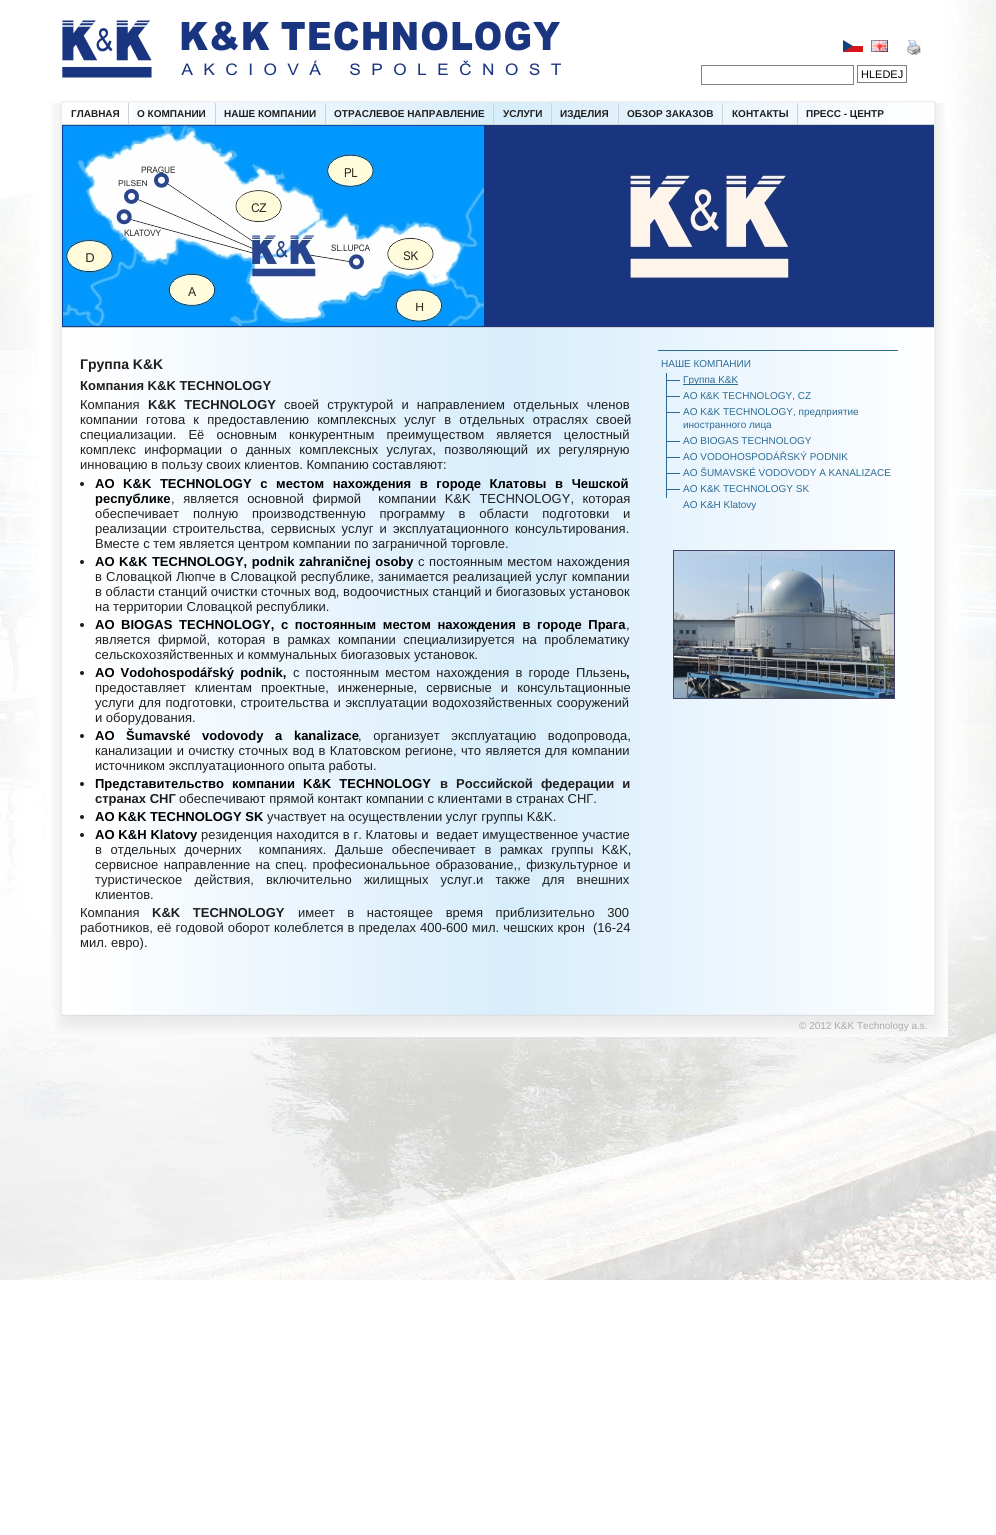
import math
import cairo


def write_spaced(ctx, x, y, s, letter, word):
	ctx.move_to(x, y)
	for ch in s:
		ctx.show_text(ch)
		ctx.rel_move_to(letter + word * (ch == ' '), 0)

def paste(ctx, path, x, y, w, h):
	ctx.save()
	ctx.set_source_surface(cairo.ImageSurface.create_from_png(path), x, y)
	ctx.rectangle(x, y, w, h)
	ctx.fill()
	ctx.restore()

def draw(ctx):
	ctx.set_source_rgb(1, 1, 1)
	ctx.paint()
	paste(ctx, 'media/1.png', 0, 0, 996, 1280)
	paste(ctx, 'media/2.png', 62, 20, 499, 58)
	paste(ctx, 'media/3.png', 843, 40, 20, 12)
	paste(ctx, 'media/4.png', 871, 40, 17, 12)
	paste(ctx, 'media/5.png', 907, 40, 14, 15)
	ctx.rectangle(701.5, 65.5, 152, 19)
	ctx.set_source_rgb(0.518, 0.518, 0.518)
	ctx.set_line_width(1)
	ctx.stroke()
	ctx.rectangle(857.5, 65.5, 49, 17)
	ctx.set_source_rgb(0.502, 0.502, 0.502)
	ctx.stroke()
	ctx.select_font_face('Liberation Sans')
	ctx.set_font_size(11)
	ctx.set_source_rgb(0, 0, 0)
	ctx.move_to(861, 78)
	ctx.show_text('HLEDEJ')
	paste(ctx, 'media/6.png', 57, 100, 879, 3)
	paste(ctx, 'media/7.png', 51, 103, 894, 22)
	ctx.set_source_rgb(0.824, 0.824, 0.824)
	ctx.rectangle(62, 124, 872, 1)
	ctx.fill()
	ctx.rectangle(128, 103, 1, 21)
	ctx.fill()
	ctx.select_font_face('Liberation Sans', cairo.FONT_SLANT_NORMAL, cairo.FONT_WEIGHT_BOLD)
	ctx.set_font_size(10)
	ctx.set_source_rgb(0.118, 0.118, 0.118)
	ctx.move_to(71, 117)
	ctx.show_text('ГЛАВНАЯ')
	ctx.set_source_rgb(0.824, 0.824, 0.824)
	ctx.rectangle(215, 103, 1, 21)
	ctx.fill()
	ctx.set_source_rgb(0.118, 0.118, 0.118)
	ctx.move_to(137, 117)
	ctx.show_text('О КОМПАНИИ')
	ctx.set_source_rgb(0.824, 0.824, 0.824)
	ctx.rectangle(325, 103, 1, 21)
	ctx.fill()
	ctx.set_source_rgb(0.118, 0.118, 0.118)
	ctx.move_to(224, 117)
	ctx.show_text('НАШЕ КОМПАНИИ')
	ctx.set_source_rgb(0.824, 0.824, 0.824)
	ctx.rectangle(493, 103, 1, 21)
	ctx.fill()
	ctx.set_source_rgb(0.118, 0.118, 0.118)
	ctx.move_to(334, 117)
	ctx.show_text('ОТРАСЛЕВОЕ НАПРАВЛЕНИЕ')
	ctx.set_source_rgb(0.824, 0.824, 0.824)
	ctx.rectangle(551, 103, 1, 21)
	ctx.fill()
	ctx.set_source_rgb(0.118, 0.118, 0.118)
	ctx.move_to(503, 117)
	ctx.show_text('УСЛУГИ')
	ctx.set_source_rgb(0.824, 0.824, 0.824)
	ctx.rectangle(618, 103, 1, 21)
	ctx.fill()
	ctx.set_source_rgb(0.118, 0.118, 0.118)
	ctx.move_to(560, 117)
	ctx.show_text('ИЗДЕЛИЯ')
	ctx.set_source_rgb(0.824, 0.824, 0.824)
	ctx.rectangle(722, 103, 1, 21)
	ctx.fill()
	ctx.set_source_rgb(0.118, 0.118, 0.118)
	ctx.move_to(627, 117)
	ctx.show_text('ОБЗОР ЗАКАЗОВ')
	ctx.set_source_rgb(0.824, 0.824, 0.824)
	ctx.rectangle(797, 103, 1, 21)
	ctx.fill()
	ctx.set_source_rgb(0.118, 0.118, 0.118)
	ctx.move_to(732, 117)
	ctx.show_text('КОНТАКТЫ')
	ctx.move_to(806, 117)
	ctx.show_text('ПРЕСС - ЦЕНТР')
	paste(ctx, 'media/8.png', 51, 125, 897, 887)
	paste(ctx, 'media/9.png', 62, 125, 872, 202)
	ctx.set_source_rgb(0.824, 0.824, 0.824)
	ctx.rectangle(62, 327, 872, 1)
	ctx.fill()
	ctx.set_font_size(14)
	ctx.set_source_rgb(0.118, 0.118, 0.118)
	ctx.move_to(80, 369)
	ctx.show_text('Группа K&K')
	ctx.set_font_size(13)
	ctx.move_to(80, 390)
	ctx.show_text('Компания K&K TECHNOLOGY')
	ctx.select_font_face('Liberation Sans')
	ctx.move_to(80, 409)
	ctx.show_text('Компания')
	ctx.select_font_face('Liberation Sans', cairo.FONT_SLANT_NORMAL, cairo.FONT_WEIGHT_BOLD)
	write_spaced(ctx, 148, 409, 'K&K TECHNOLOGY', 0, 4.5)
	ctx.select_font_face('Liberation Sans')
	write_spaced(ctx, 284, 409, 'своей структурой и направлением отдельных членов', 0, 4.5)
	write_spaced(ctx, 80, 424, 'компании готова к предоставлению комплексных услуг в отдельных отраслях своей', 0, 4.5)
	write_spaced(ctx, 80, 439, 'специализации. Её основным конкурентным преимуществом является целостный', 0, 8.5)
	write_spaced(ctx, 80, 454, 'комплекс информации о данных комплексных услугах, позволяющий их регулярную', 0, 4.75)
	ctx.move_to(80, 469)
	ctx.show_text('инновацию в пользу своих клиентов. Компанию составляют:')
	ctx.new_path()
	ctx.arc(82, 484, 2, 0, 2 * math.pi)
	ctx.fill()
	ctx.select_font_face('Liberation Sans', cairo.FONT_SLANT_NORMAL, cairo.FONT_WEIGHT_BOLD)
	ctx.set_source_rgb(0, 0, 0)
	write_spaced(ctx, 95, 488, 'АО K&K TECHNOLOGY с местом нахождения в городе Клатовы в Чешской', 0, 5)
	ctx.move_to(95, 503)
	ctx.show_text('республике')
	ctx.select_font_face('Liberation Sans')
	ctx.set_source_rgb(0.118, 0.118, 0.118)
	write_spaced(ctx, 171, 503, ', является основной фирмой  компании K&K TECHNOLOGY, которая', 0, 5)
	write_spaced(ctx, 95, 518, 'обеспечивает полную производственную программу в области подготовки и', 0, 10.25)
	write_spaced(ctx, 95, 533, 'реализации строительства, сервисных услуг и эксплуатационного консультирования.', 0, 2.5)
	ctx.move_to(95, 548)
	ctx.show_text('Вместе с тем является центром компании по заграничной торговле.')
	ctx.new_path()
	ctx.arc(82, 562, 2, 0, 2 * math.pi)
	ctx.fill()
	ctx.select_font_face('Liberation Sans', cairo.FONT_SLANT_NORMAL, cairo.FONT_WEIGHT_BOLD)
	ctx.set_source_rgb(0, 0, 0)
	write_spaced(ctx, 95, 566, 'АО K&K TECHNOLOGY, podnik zahraničnej osoby', 0, 1)
	ctx.select_font_face('Liberation Sans')
	ctx.set_source_rgb(0.118, 0.118, 0.118)
	write_spaced(ctx, 418, 566, 'с постоянным местом нахождения', 0, 1)
	write_spaced(ctx, 95, 581, 'в Словацкой Люпче в Словацкой республике, занимается реализацией услуг компании', 0, 0.5)
	ctx.move_to(95, 596)
	ctx.show_text('в области станций очистки сточных вод, водоочистных станций и биогазовых установок')
	ctx.move_to(95, 611)
	ctx.show_text('на территории Словацкой республики.')
	ctx.new_path()
	ctx.arc(82, 625, 2, 0, 2 * math.pi)
	ctx.fill()
	ctx.select_font_face('Liberation Sans', cairo.FONT_SLANT_NORMAL, cairo.FONT_WEIGHT_BOLD)
	ctx.set_source_rgb(0, 0, 0)
	write_spaced(ctx, 95, 629, 'АО BIOGAS TECHNOLOGY, с постоянным местом нахождения в городе Прага', 0, 3)
	ctx.select_font_face('Liberation Sans')
	ctx.set_source_rgb(0.118, 0.118, 0.118)
	ctx.move_to(626, 629)
	ctx.show_text(',')
	write_spaced(ctx, 95, 644, 'является фирмой, которая в рамках компании специализируется на проблематику', 0, 4)
	ctx.move_to(95, 659)
	ctx.show_text('сельскохозяйственных и коммунальных биогазовых установок.')
	ctx.new_path()
	ctx.arc(82, 673, 2, 0, 2 * math.pi)
	ctx.fill()
	ctx.select_font_face('Liberation Sans', cairo.FONT_SLANT_NORMAL, cairo.FONT_WEIGHT_BOLD)
	ctx.set_source_rgb(0, 0, 0)
	write_spaced(ctx, 95, 677, 'АО Vodohospodářský podnik,', 0, 2.5)
	ctx.select_font_face('Liberation Sans')
	ctx.set_source_rgb(0.118, 0.118, 0.118)
	write_spaced(ctx, 293, 677, 'с постоянным местом нахождения в городе Пльзень', 0, 2.5)
	ctx.select_font_face('Liberation Sans', cairo.FONT_SLANT_NORMAL, cairo.FONT_WEIGHT_BOLD)
	ctx.move_to(626, 677)
	ctx.show_text(',')
	ctx.select_font_face('Liberation Sans')
	write_spaced(ctx, 95, 692, 'предоставляет клиентам проектные, инженерные, сервисные и консультационные', 0, 5.5)
	write_spaced(ctx, 95, 707, 'услуги для подготовки, строительства и эксплуатации водохозяйственных сооружений', 0, 1)
	ctx.move_to(95, 722)
	ctx.show_text('и оборудования.')
	ctx.new_path()
	ctx.arc(82, 736, 2, 0, 2 * math.pi)
	ctx.fill()
	ctx.select_font_face('Liberation Sans', cairo.FONT_SLANT_NORMAL, cairo.FONT_WEIGHT_BOLD)
	ctx.set_source_rgb(0, 0, 0)
	write_spaced(ctx, 95, 740, 'АО Šumavské vodovody a kanalizace', 0, 8)
	ctx.select_font_face('Liberation Sans')
	ctx.set_source_rgb(0.118, 0.118, 0.118)
	write_spaced(ctx, 358, 740, ', организует эксплуатацию водопровода,', 0, 8)
	write_spaced(ctx, 95, 755, 'канализации и очистку сточных вод в Клатовском регионе, что является для компании', 0, 0.75)
	ctx.move_to(95, 770)
	ctx.show_text('источником эксплуатационного опыта работы.')
	ctx.new_path()
	ctx.arc(82, 784, 2, 0, 2 * math.pi)
	ctx.fill()
	ctx.select_font_face('Liberation Sans', cairo.FONT_SLANT_NORMAL, cairo.FONT_WEIGHT_BOLD)
	ctx.set_source_rgb(0, 0, 0)
	write_spaced(ctx, 95, 788, 'Представительство компании', 0, 4.5)
	write_spaced(ctx, 303, 788, 'K&K TECHNOLOGY', 0, 4.5)
	ctx.set_source_rgb(0.118, 0.118, 0.118)
	write_spaced(ctx, 440, 788, 'в Российской федерации и', 0, 4.5)
	ctx.move_to(95, 803)
	ctx.show_text('странах СНГ')
	ctx.select_font_face('Liberation Sans')
	ctx.move_to(179, 803)
	ctx.show_text('обеспечивают прямой контакт компании с клиентами в странах СНГ.')
	ctx.new_path()
	ctx.arc(82, 817, 2, 0, 2 * math.pi)
	ctx.fill()
	ctx.select_font_face('Liberation Sans', cairo.FONT_SLANT_NORMAL, cairo.FONT_WEIGHT_BOLD)
	ctx.set_source_rgb(0, 0, 0)
	ctx.move_to(95, 821)
	ctx.show_text('AO K&K TECHNOLOGY SK')
	ctx.select_font_face('Liberation Sans')
	ctx.set_source_rgb(0.118, 0.118, 0.118)
	ctx.move_to(267, 821)
	ctx.show_text('участвует на осуществлении услуг группы K&K.')
	ctx.new_path()
	ctx.arc(82, 835, 2, 0, 2 * math.pi)
	ctx.fill()
	ctx.select_font_face('Liberation Sans', cairo.FONT_SLANT_NORMAL, cairo.FONT_WEIGHT_BOLD)
	ctx.set_source_rgb(0, 0, 0)
	write_spaced(ctx, 95, 839, 'AO K&H Klatovy', 0, 0.25)
	ctx.select_font_face('Liberation Sans')
	ctx.set_source_rgb(0.118, 0.118, 0.118)
	write_spaced(ctx, 201, 839, 'резиденция находится в г. Клатовы и  ведает имущественное участие', 0, 0.25)
	write_spaced(ctx, 95, 854, 'в отдельных дочерних  компаниях. Дальше обеспечивает в рамках группы K&K,', 0, 5)
	write_spaced(ctx, 95, 869, 'сервисное направленние на спец. професиональьное образование,, физкультурное и', 0, 1.75)
	write_spaced(ctx, 95, 884, 'туристическое действия, включительно жилищных услуг.и также для внешних', 0, 8.5)
	ctx.move_to(95, 899)
	ctx.show_text('клиентов.')
	ctx.move_to(80, 917)
	ctx.show_text('Компания')
	ctx.select_font_face('Liberation Sans', cairo.FONT_SLANT_NORMAL, cairo.FONT_WEIGHT_BOLD)
	write_spaced(ctx, 152, 917, 'K&K TECHNOLOGY', 0, 9)
	ctx.select_font_face('Liberation Sans')
	write_spaced(ctx, 298, 917, 'имеет в настоящее время приблизительно 300', 0, 9)
	write_spaced(ctx, 80, 932, 'работников, её годовой оборот колеблется в пределах 400-600 мил. чешских крон  (16-24', 0, 0.4)
	ctx.move_to(80, 947)
	ctx.show_text('мил. евро).')
	ctx.set_source_rgb(0.173, 0.42, 0.584)
	ctx.rectangle(658, 350, 240, 1)
	ctx.fill()
	ctx.set_font_size(10)
	ctx.move_to(661, 367)
	ctx.show_text('НАШЕ КОМПАНИИ')
	paste(ctx, 'media/10.png', 666, 373, 14, 16)
	ctx.rectangle(683, 384, 55, 1)
	ctx.fill()
	ctx.move_to(683, 383)
	ctx.show_text('Группа K&K')
	paste(ctx, 'media/10.png', 666, 389, 14, 16)
	ctx.move_to(683, 399)
	ctx.show_text('АО К&K TECHNOLОGY, CZ')
	paste(ctx, 'media/11.png', 666, 405, 14, 29)
	ctx.move_to(683, 415)
	ctx.show_text('АО K&K TECHNOLOGY, предприятие')
	ctx.move_to(683, 428)
	ctx.show_text('иностранного лица')
	paste(ctx, 'media/10.png', 666, 434, 14, 16)
	ctx.move_to(683, 444)
	ctx.show_text('АО BIOGAS TECHNOLOGY')
	paste(ctx, 'media/10.png', 666, 450, 14, 16)
	ctx.move_to(683, 460)
	ctx.show_text('АО VODOHOSPODÁŘSKÝ PODNIK')
	paste(ctx, 'media/10.png', 666, 466, 14, 16)
	ctx.move_to(683, 476)
	ctx.show_text('AO ŠUMAVSKÉ VODOVODY A KANALIZACE')
	paste(ctx, 'media/10.png', 666, 482, 14, 16)
	ctx.move_to(683, 492)
	ctx.show_text('АО K&K TECHNOLOGY SK')
	ctx.move_to(683, 508)
	ctx.show_text('AO K&H Klatovy')
	ctx.rectangle(673.5, 550.5, 221, 148)
	ctx.set_source_rgb(0.294, 0.263, 0.424)
	ctx.stroke()
	paste(ctx, 'media/12.png', 674, 551, 220, 147)
	paste(ctx, 'media/13.png', 55, 1012, 893, 25)
	ctx.set_source_rgb(0.667, 0.667, 0.667)
	ctx.move_to(799, 1029)
	ctx.show_text('© 2012 K&K Technology a.s.')


surface = cairo.ImageSurface(cairo.FORMAT_RGB24, 996, 1535)
ctx = cairo.Context(surface)
options = cairo.FontOptions()
options.set_hint_metrics(cairo.HINT_METRICS_OFF)
options.set_hint_style(cairo.HINT_STYLE_NONE)
ctx.set_font_options(options)
ctx.set_miter_limit(4)
draw(ctx)
surface.write_to_png('image.png')
